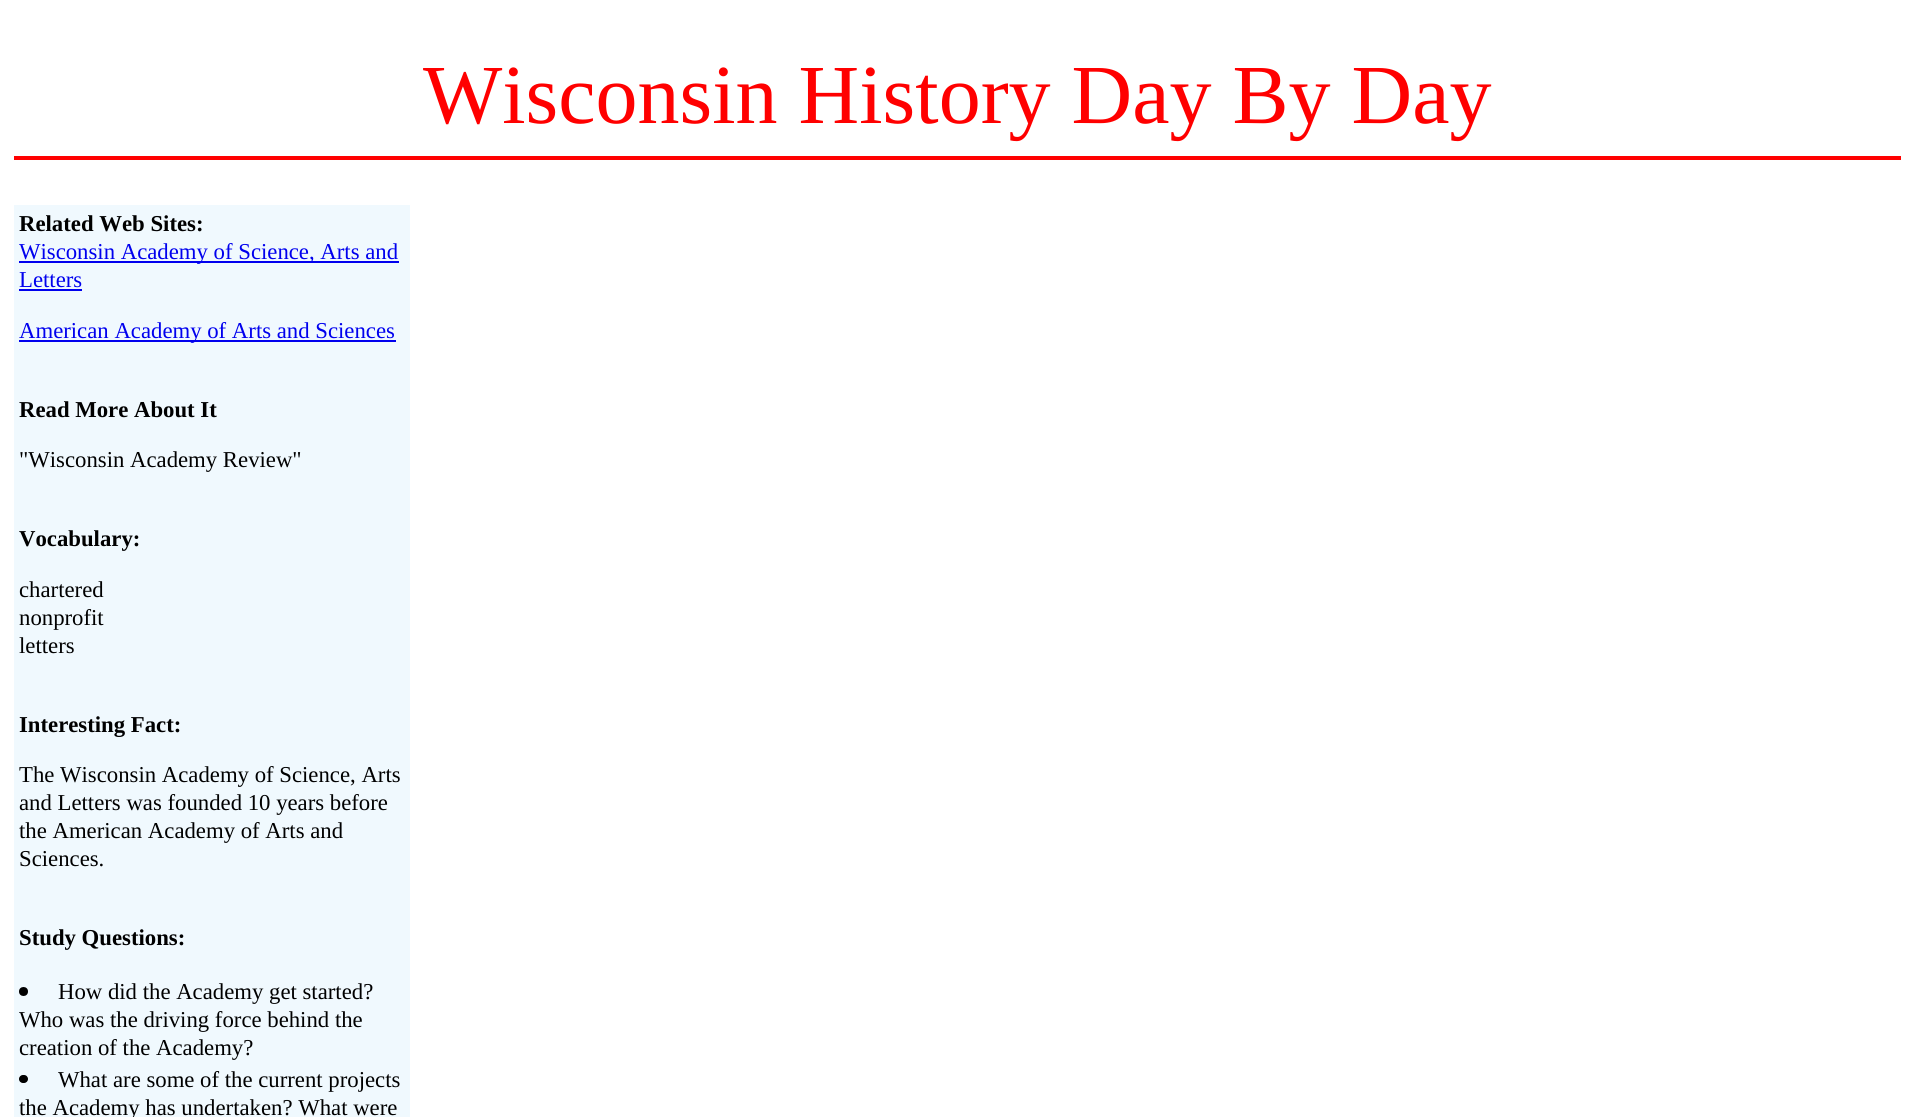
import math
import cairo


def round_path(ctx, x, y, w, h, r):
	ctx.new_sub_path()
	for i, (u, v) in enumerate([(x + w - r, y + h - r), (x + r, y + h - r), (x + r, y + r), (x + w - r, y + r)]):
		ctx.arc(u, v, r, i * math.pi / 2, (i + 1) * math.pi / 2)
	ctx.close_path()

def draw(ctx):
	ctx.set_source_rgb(1, 1, 1)
	ctx.paint()
	ctx.select_font_face('Liberation Serif')
	ctx.set_font_size(84)
	ctx.set_source_rgb(1, 0, 0)
	ctx.move_to(423, 123)
	ctx.show_text('Wisconsin History Day By Day')
	ctx.rectangle(14, 156, 1887, 4)
	ctx.fill()
	ctx.set_source_rgb(0.941, 0.973, 0.996)
	ctx.rectangle(14, 205, 396, 912)
	ctx.fill()
	ctx.select_font_face('Liberation Serif', cairo.FONT_SLANT_NORMAL, cairo.FONT_WEIGHT_BOLD)
	ctx.set_font_size(22.75)
	ctx.set_source_rgb(0, 0, 0)
	ctx.move_to(19, 231)
	ctx.show_text('Related Web Sites:')
	ctx.set_source_rgb(0, 0, 0.933)
	ctx.rectangle(19, 261, 380, 2)
	ctx.fill()
	ctx.select_font_face('Liberation Serif')
	ctx.move_to(19, 259)
	ctx.show_text('Wisconsin Academy of Science, Arts and')
	ctx.move_to(19, 287)
	ctx.show_text('Letters')
	ctx.rectangle(19, 289, 63, 2)
	ctx.fill()
	ctx.rectangle(19, 340, 377, 2)
	ctx.fill()
	ctx.move_to(19, 338)
	ctx.show_text('American Academy of Arts and Sciences')
	ctx.select_font_face('Liberation Serif', cairo.FONT_SLANT_NORMAL, cairo.FONT_WEIGHT_BOLD)
	ctx.set_source_rgb(0, 0, 0)
	ctx.move_to(19, 417)
	ctx.show_text('Read More About It')
	ctx.select_font_face('Liberation Serif')
	ctx.move_to(19, 467)
	ctx.show_text('"Wisconsin Academy Review"')
	ctx.select_font_face('Liberation Serif', cairo.FONT_SLANT_NORMAL, cairo.FONT_WEIGHT_BOLD)
	ctx.move_to(19, 546)
	ctx.show_text('Vocabulary:')
	ctx.select_font_face('Liberation Serif')
	for x, y, s in [
		(19, 597, 'chartered'),
		(19, 625, 'nonprofit'),
		(19, 653, 'letters'),
	]:
		ctx.move_to(x, y)
		ctx.show_text(s)
	ctx.select_font_face('Liberation Serif', cairo.FONT_SLANT_NORMAL, cairo.FONT_WEIGHT_BOLD)
	ctx.move_to(19, 732)
	ctx.show_text('Interesting Fact:')
	ctx.select_font_face('Liberation Serif')
	for x, y, s in [
		(19, 782, 'The Wisconsin Academy of Science, Arts'),
		(19, 810, 'and Letters was founded 10 years before'),
		(19, 838, 'the American Academy of Arts and'),
		(19, 866, 'Sciences.'),
	]:
		ctx.move_to(x, y)
		ctx.show_text(s)
	ctx.select_font_face('Liberation Serif', cairo.FONT_SLANT_NORMAL, cairo.FONT_WEIGHT_BOLD)
	ctx.move_to(19, 945)
	ctx.show_text('Study Questions:')
	ctx.new_path()
	ctx.arc(23.5, 991.5, 4.5, 0, 2 * math.pi)
	ctx.fill()
	ctx.select_font_face('Liberation Serif')
	for x, y, s in [
		(58, 999, 'How did the Academy get started?'),
		(19, 1027, 'Who was the driving force behind the'),
		(19, 1055, 'creation of the Academy?'),
	]:
		ctx.move_to(x, y)
		ctx.show_text(s)
	round_path(ctx, 19, 1075, 9, 8, 4)
	ctx.fill()
	ctx.move_to(58, 1087)
	ctx.show_text('What are some of the current projects')
	ctx.move_to(19, 1115)
	ctx.show_text('the Academy has undertaken? What were')


surface = cairo.ImageSurface(cairo.FORMAT_RGB24, 1914, 1117)
ctx = cairo.Context(surface)
options = cairo.FontOptions()
options.set_hint_metrics(cairo.HINT_METRICS_OFF)
options.set_hint_style(cairo.HINT_STYLE_NONE)
ctx.set_font_options(options)
ctx.set_miter_limit(4)
draw(ctx)
surface.write_to_png('image.png')
